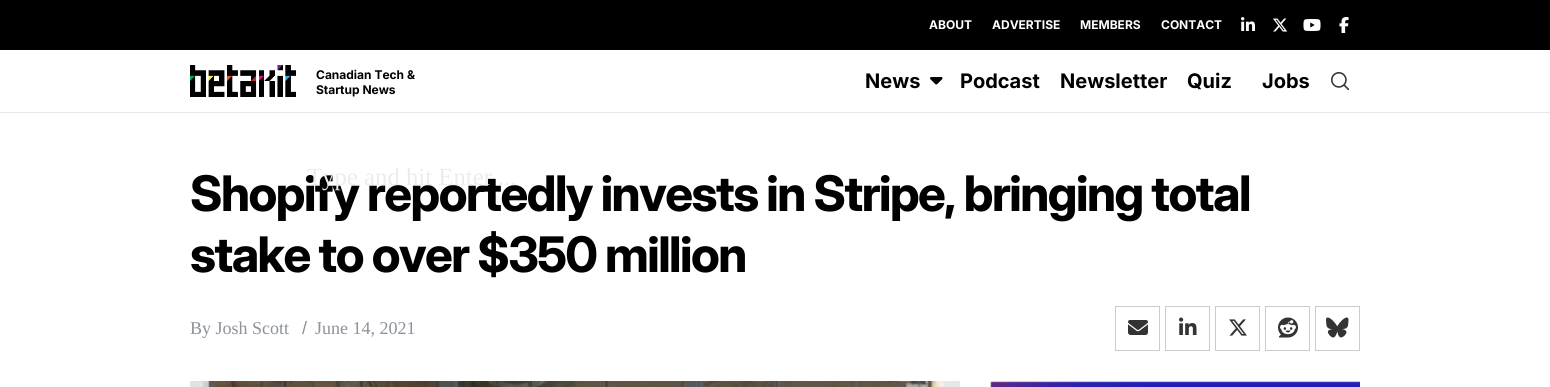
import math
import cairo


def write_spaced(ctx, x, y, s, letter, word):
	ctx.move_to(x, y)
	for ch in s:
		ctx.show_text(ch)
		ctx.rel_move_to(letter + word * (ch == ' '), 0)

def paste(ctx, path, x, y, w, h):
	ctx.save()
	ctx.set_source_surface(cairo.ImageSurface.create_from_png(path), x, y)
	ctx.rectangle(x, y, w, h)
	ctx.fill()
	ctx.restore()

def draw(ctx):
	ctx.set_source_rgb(1, 1, 1)
	ctx.paint()
	ctx.set_source_rgb(0, 0, 0)
	ctx.rectangle(0, 0, 1550, 50)
	ctx.fill()
	ctx.select_font_face('Inter', cairo.FONT_SLANT_NORMAL, cairo.FONT_WEIGHT_BOLD)
	ctx.set_font_size(12)
	ctx.set_source_rgb(1, 1, 1)
	for x, y, s in [
		(929, 29, 'ABOUT'),
		(992, 29, 'ADVERTISE'),
		(1080, 29, 'MEMBERS'),
		(1161, 29, 'CONTACT'),
	]:
		ctx.move_to(x, y)
		ctx.show_text(s)
	paste(ctx, 'media/1.png', 1241, 17, 14, 14)
	paste(ctx, 'media/2.png', 1273, 18, 15, 14)
	paste(ctx, 'media/3.png', 1303, 19, 18, 12)
	paste(ctx, 'media/4.png', 1339, 17, 10, 16)
	ctx.set_source_rgb(0.91, 0.91, 0.91)
	ctx.rectangle(0, 112, 1550, 1)
	ctx.fill()
	paste(ctx, 'media/5.png', 190, 65, 106, 32)
	ctx.set_source_rgb(0, 0, 0)
	ctx.move_to(316, 79)
	ctx.show_text('Canadian Tech &')
	ctx.move_to(316, 94)
	ctx.show_text('Startup News')
	ctx.set_font_size(20)
	ctx.move_to(865, 88)
	ctx.show_text('News')
	paste(ctx, 'media/6.png', 930, 77, 13, 8)
	for x, y, s in [
		(960, 88, 'Podcast'),
		(1060, 88, 'Newsletter'),
		(1187, 88, 'Quiz'),
		(1262, 88, 'Jobs'),
	]:
		ctx.move_to(x, y)
		ctx.show_text(s)
	paste(ctx, 'media/7.png', 1331, 72, 18, 18)
	ctx.select_font_face('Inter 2', cairo.FONT_SLANT_NORMAL, cairo.FONT_WEIGHT_BOLD)
	ctx.set_font_size(49)
	write_spaced(ctx, 190, 211, 'Shopify reportedly invests in Stripe, bringing total', -1.47, 0)
	ctx.select_font_face('Liberation Serif')
	ctx.set_font_size(24.75)
	ctx.set_source_rgb(0.925, 0.925, 0.925)
	ctx.move_to(307, 185)
	ctx.show_text('Type and hit Enter ...')
	ctx.select_font_face('Inter 2', cairo.FONT_SLANT_NORMAL, cairo.FONT_WEIGHT_BOLD)
	ctx.set_font_size(49)
	ctx.set_source_rgb(0, 0, 0)
	write_spaced(ctx, 190, 272, 'stake to over $350 million', -1.47, 0)
	ctx.select_font_face('Liberation Serif')
	ctx.set_font_size(18)
	ctx.set_source_rgb(0.549, 0.569, 0.608)
	ctx.move_to(190, 334)
	ctx.show_text('By Josh Scott')
	ctx.select_font_face('Liberation Sans')
	ctx.move_to(302, 334)
	ctx.show_text('/')
	ctx.select_font_face('Liberation Serif')
	ctx.move_to(315, 334)
	ctx.show_text('June 14, 2021')
	ctx.rectangle(1115.5, 306.5, 44, 44)
	ctx.set_source_rgb(0.8, 0.8, 0.8)
	ctx.set_line_width(1)
	ctx.stroke()
	paste(ctx, 'media/8.png', 1128, 320, 20, 15)
	ctx.rectangle(1165.5, 306.5, 44, 44)
	ctx.stroke()
	paste(ctx, 'media/9.png', 1179, 317, 18, 18)
	ctx.rectangle(1215.5, 306.5, 44, 44)
	ctx.stroke()
	paste(ctx, 'media/10.png', 1229, 319, 18, 17)
	ctx.rectangle(1265.5, 306.5, 44, 44)
	ctx.stroke()
	paste(ctx, 'media/11.png', 1278, 317, 20, 21)
	ctx.rectangle(1315.5, 306.5, 44, 44)
	ctx.stroke()
	paste(ctx, 'media/12.png', 1326, 317, 23, 21)
	paste(ctx, 'media/13.png', 190, 381, 770, 6)
	paste(ctx, 'media/14.png', 990, 381, 370, 6)


surface = cairo.ImageSurface(cairo.FORMAT_RGB24, 1550, 387)
ctx = cairo.Context(surface)
options = cairo.FontOptions()
options.set_hint_metrics(cairo.HINT_METRICS_OFF)
options.set_hint_style(cairo.HINT_STYLE_NONE)
ctx.set_font_options(options)
ctx.set_miter_limit(4)
draw(ctx)
surface.write_to_png('image.png')
